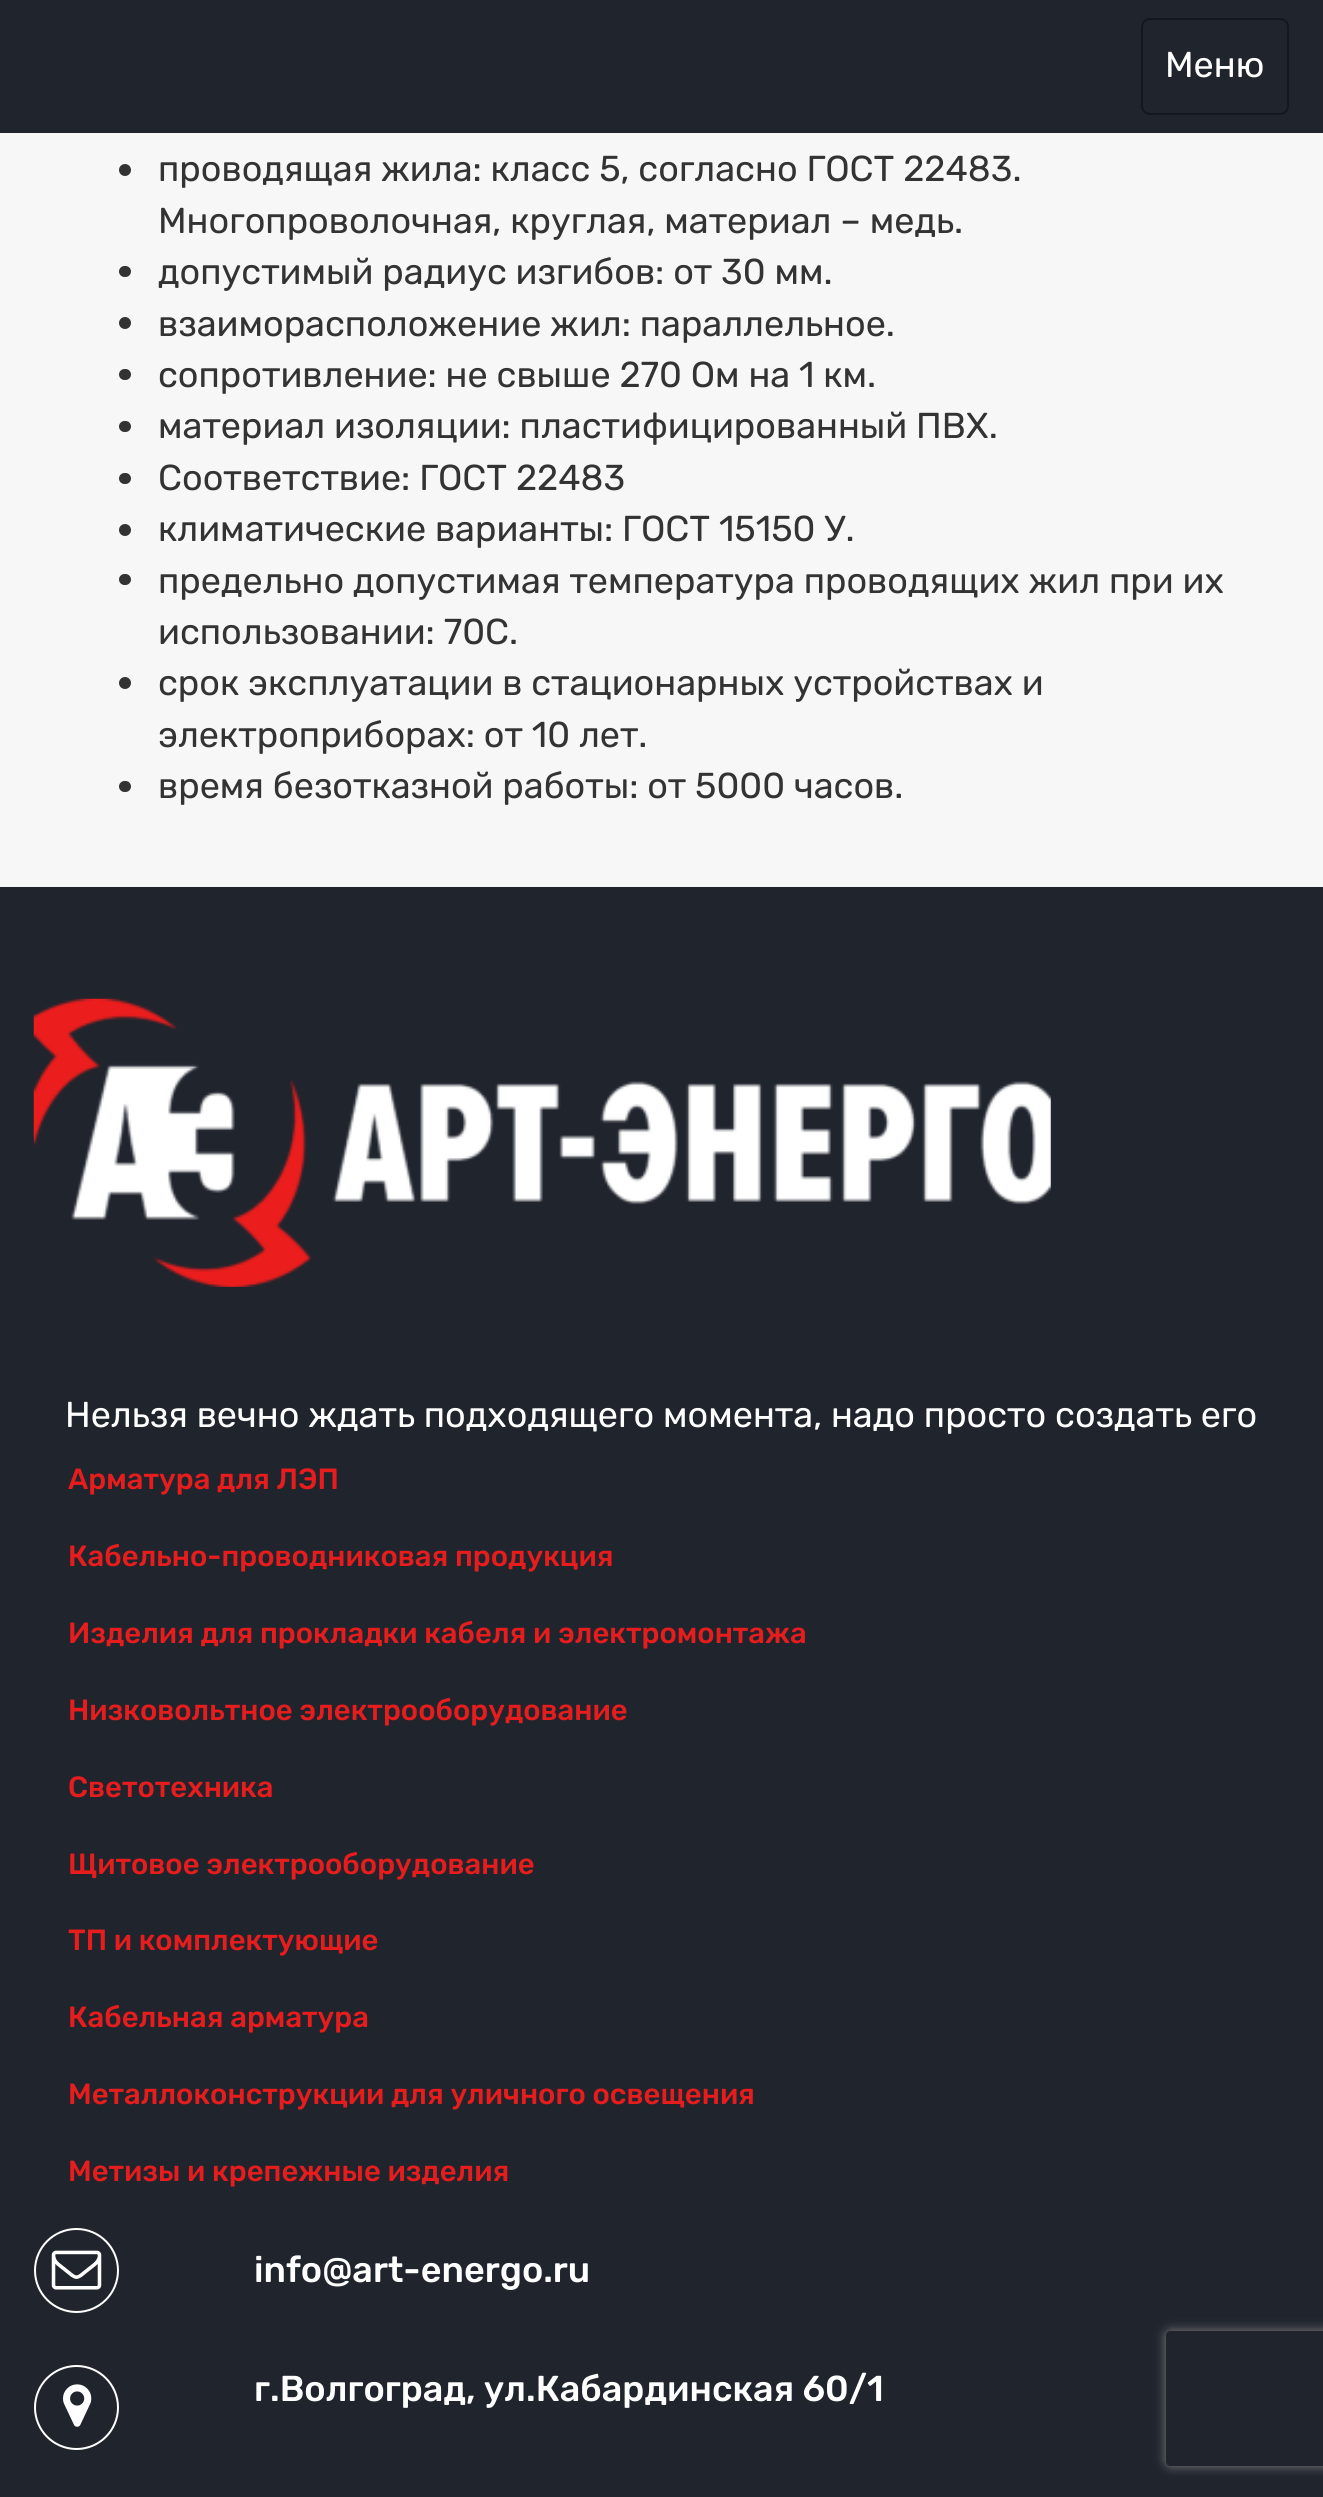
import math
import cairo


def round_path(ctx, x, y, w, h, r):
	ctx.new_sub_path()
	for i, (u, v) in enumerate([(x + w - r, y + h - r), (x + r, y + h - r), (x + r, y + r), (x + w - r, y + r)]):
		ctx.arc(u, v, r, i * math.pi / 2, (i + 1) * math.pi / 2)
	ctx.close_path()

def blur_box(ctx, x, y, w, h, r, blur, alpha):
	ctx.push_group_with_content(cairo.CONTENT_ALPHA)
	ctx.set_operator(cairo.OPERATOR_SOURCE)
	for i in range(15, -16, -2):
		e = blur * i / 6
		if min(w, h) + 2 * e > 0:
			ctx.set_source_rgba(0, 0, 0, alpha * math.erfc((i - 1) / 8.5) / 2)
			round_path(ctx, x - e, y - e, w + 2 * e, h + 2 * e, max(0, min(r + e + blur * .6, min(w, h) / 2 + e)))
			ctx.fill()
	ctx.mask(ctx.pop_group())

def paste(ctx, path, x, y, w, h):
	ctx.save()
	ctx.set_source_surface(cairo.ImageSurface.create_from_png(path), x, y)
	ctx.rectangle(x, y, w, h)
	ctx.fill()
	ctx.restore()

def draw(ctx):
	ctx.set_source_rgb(0.965, 0.965, 0.965)
	ctx.paint()
	ctx.set_source_rgb(0.125, 0.141, 0.176)
	ctx.rectangle(0, 0, 1323, 133)
	ctx.fill()
	round_path(ctx, 1142, 19, 146, 95, 8)
	ctx.set_source_rgb(0.082, 0.09, 0.114)
	ctx.stroke()
	ctx.select_font_face('Rubik')
	ctx.set_font_size(36)
	ctx.set_source_rgb(1, 1, 1)
	ctx.move_to(1165, 77)
	ctx.show_text('Меню')
	ctx.set_source_rgb(0.2, 0.2, 0.2)
	ctx.new_path()
	ctx.arc(125, 170, 6, 0, 2 * math.pi)
	ctx.fill()
	ctx.move_to(158, 181)
	ctx.show_text('проводящая жила: класс 5, согласно ГОСТ 22483.')
	ctx.move_to(158, 233)
	ctx.show_text('Многопроволочная, круглая, материал – медь.')
	round_path(ctx, 119, 266, 12, 11, 5.5)
	ctx.fill()
	ctx.move_to(158, 284)
	ctx.show_text('допустимый радиус изгибов: от 30 мм.')
	ctx.new_path()
	ctx.arc(125, 323, 6, 0, 2 * math.pi)
	ctx.fill()
	ctx.move_to(158, 336)
	ctx.show_text('взаиморасположение жил: параллельное.')
	round_path(ctx, 119, 369, 12, 11, 5.5)
	ctx.fill()
	ctx.move_to(158, 387)
	ctx.show_text('сопротивление: не свыше 270 Ом на 1 км.')
	round_path(ctx, 119, 421, 12, 11, 5.5)
	ctx.fill()
	ctx.move_to(158, 438)
	ctx.show_text('материал изоляции: пластифицированный ПВХ.')
	round_path(ctx, 119, 473, 12, 11, 5.5)
	ctx.fill()
	ctx.move_to(158, 490)
	ctx.show_text('Соответствие: ГОСТ 22483')
	ctx.new_path()
	ctx.arc(125, 530, 6, 0, 2 * math.pi)
	ctx.fill()
	ctx.move_to(158, 541)
	ctx.show_text('климатические варианты: ГОСТ 15150 У.')
	round_path(ctx, 119, 574, 12, 11, 5.5)
	ctx.fill()
	ctx.move_to(158, 593)
	ctx.show_text('предельно допустимая температура проводящих жил при их')
	ctx.move_to(158, 644)
	ctx.show_text('использовании: 70С.')
	ctx.new_path()
	ctx.arc(125, 683, 6, 0, 2 * math.pi)
	ctx.fill()
	ctx.move_to(158, 695)
	ctx.show_text('срок эксплуатации в стационарных устройствах и')
	ctx.move_to(158, 747)
	ctx.show_text('электроприборах: от 10 лет.')
	round_path(ctx, 119, 781, 12, 11, 5.5)
	ctx.fill()
	ctx.move_to(158, 798)
	ctx.show_text('время безотказной работы: от 5000 часов.')
	ctx.set_source_rgb(0.125, 0.141, 0.176)
	ctx.rectangle(0, 887, 1323, 1610)
	ctx.fill()
	paste(ctx, 'media/1.png', 33, 998, 1018, 289)
	ctx.set_source_rgb(1, 1, 1)
	ctx.move_to(65, 1427)
	ctx.show_text('Нельзя вечно ждать подходящего момента, надо просто создать его')
	ctx.select_font_face('Rubik Medium')
	ctx.set_font_size(29.25)
	ctx.set_source_rgb(0.906, 0.114, 0.114)
	for x, y, s in [
		(68, 1489, 'Арматура для ЛЭП'),
		(68, 1566, 'Кабельно-проводниковая продукция'),
		(68, 1643, 'Изделия для прокладки кабеля и электромонтажа'),
		(68, 1720, 'Низковольтное электрооборудование'),
		(68, 1797, 'Светотехника'),
		(68, 1874, 'Щитовое электрооборудование'),
		(68, 1950, 'ТП и комплектующие'),
		(68, 2027, 'Кабельная арматура'),
		(68, 2104, 'Металлоконструкции для уличного освещения'),
		(68, 2181, 'Метизы и крепежные изделия'),
	]:
		ctx.move_to(x, y)
		ctx.show_text(s)
	ctx.new_path()
	ctx.arc(76.5, 2270.5, 41.5, 0, 2 * math.pi)
	ctx.set_source_rgb(1, 1, 1)
	ctx.stroke()
	paste(ctx, 'media/2.png', 51, 2250, 51, 40)
	ctx.set_font_size(36)
	ctx.move_to(254, 2282)
	ctx.show_text('info@art-energo.ru')
	ctx.new_path()
	ctx.arc(76.5, 2407.5, 41.5, 0, 2 * math.pi)
	ctx.stroke()
	paste(ctx, 'media/3.png', 63, 2384, 29, 43)
	ctx.move_to(254, 2401)
	ctx.show_text('г.Волгоград, ул.Кабардинская 60/1')
	ctx.save()
	ctx.set_fill_rule(cairo.FILL_RULE_EVEN_ODD)
	ctx.new_path()
	ctx.move_to(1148, 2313)
	ctx.line_to(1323, 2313)
	ctx.line_to(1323, 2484)
	ctx.line_to(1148, 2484)
	ctx.close_path()
	ctx.move_to(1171, 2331)
	ctx.line_to(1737, 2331)
	ctx.curve_to(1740, 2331, 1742, 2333, 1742, 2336)
	ctx.line_to(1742, 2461)
	ctx.curve_to(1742, 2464, 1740, 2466, 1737, 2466)
	ctx.line_to(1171, 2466)
	ctx.curve_to(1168, 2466, 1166, 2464, 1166, 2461)
	ctx.line_to(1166, 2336)
	ctx.curve_to(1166, 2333, 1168, 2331, 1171, 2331)
	ctx.close_path()
	ctx.clip()
	ctx.set_source_rgb(0.502, 0.502, 0.502)
	blur_box(ctx, 1166, 2331, 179, 135, 5, 5.5, 1)
	ctx.restore()


surface = cairo.ImageSurface(cairo.FORMAT_RGB24, 1323, 2497)
ctx = cairo.Context(surface)
options = cairo.FontOptions()
options.set_hint_metrics(cairo.HINT_METRICS_OFF)
options.set_hint_style(cairo.HINT_STYLE_NONE)
ctx.set_font_options(options)
ctx.set_miter_limit(4)
draw(ctx)
surface.write_to_png('image.png')
